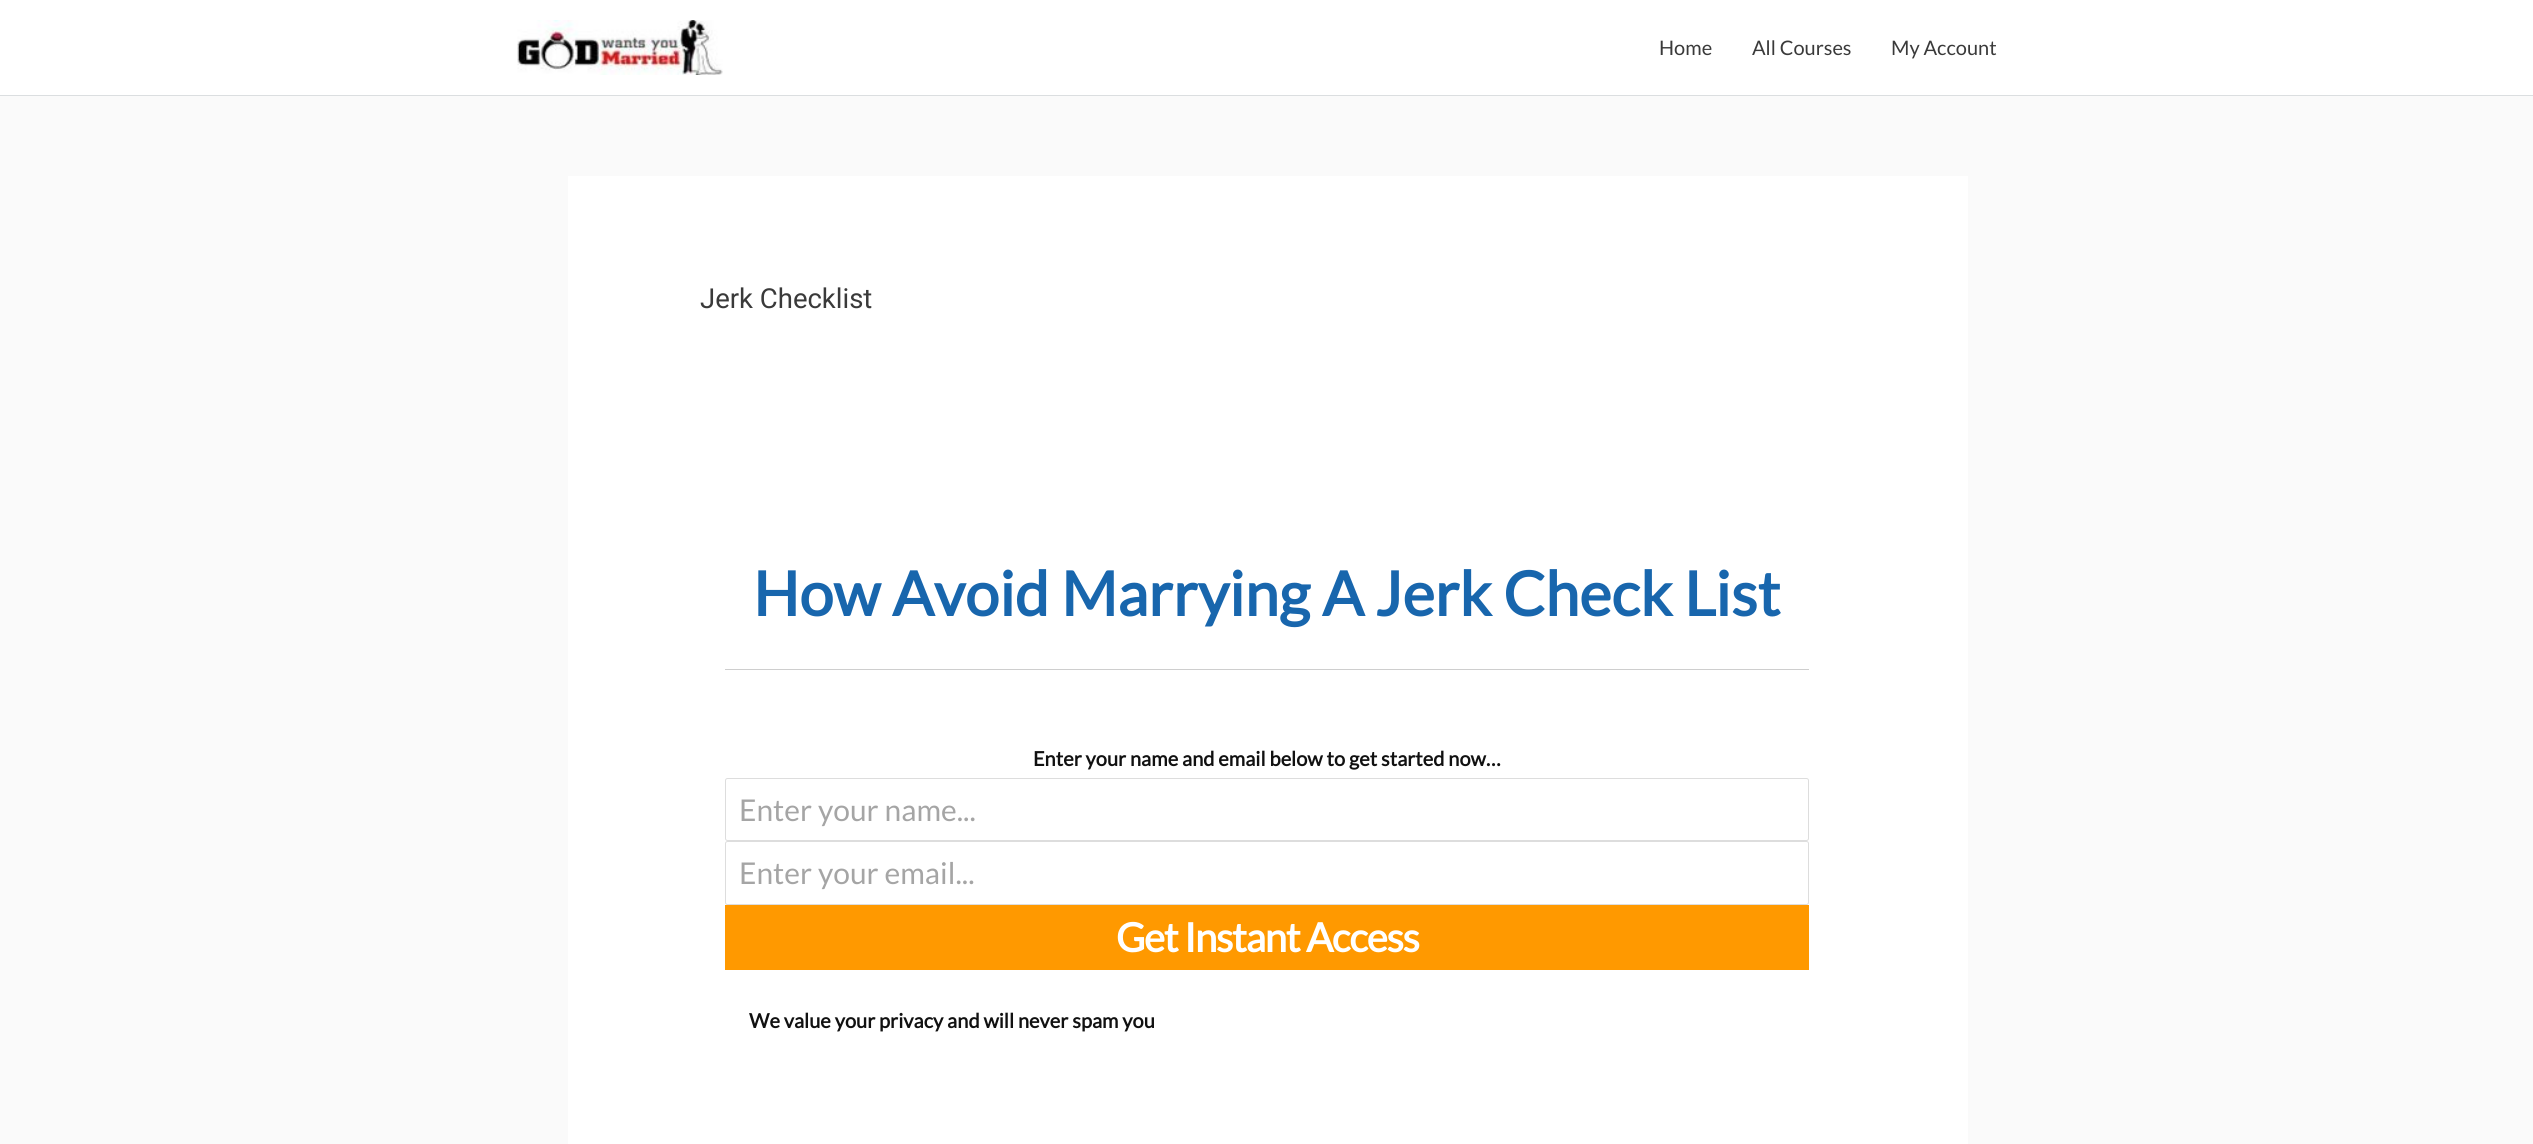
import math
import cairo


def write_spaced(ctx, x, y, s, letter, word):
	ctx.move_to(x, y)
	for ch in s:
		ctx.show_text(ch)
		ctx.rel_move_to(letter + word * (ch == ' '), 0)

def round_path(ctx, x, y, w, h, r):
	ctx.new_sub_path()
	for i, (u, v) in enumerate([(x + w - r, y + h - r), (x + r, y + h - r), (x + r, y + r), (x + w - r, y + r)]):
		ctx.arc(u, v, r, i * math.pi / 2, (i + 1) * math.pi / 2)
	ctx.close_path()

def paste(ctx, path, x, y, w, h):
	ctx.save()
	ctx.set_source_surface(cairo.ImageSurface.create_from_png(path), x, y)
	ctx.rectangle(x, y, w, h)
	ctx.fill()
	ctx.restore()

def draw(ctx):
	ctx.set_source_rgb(0.98, 0.98, 0.98)
	ctx.paint()
	ctx.set_source_rgb(1, 1, 1)
	ctx.rectangle(0, 0, 2533, 95)
	ctx.fill()
	ctx.set_source_rgb(0.859, 0.871, 0.878)
	ctx.rectangle(0, 95, 2533, 1)
	ctx.fill()
	paste(ctx, 'media/1.png', 517, 20, 206, 55)
	ctx.select_font_face('Lato')
	ctx.set_font_size(20)
	ctx.set_source_rgb(0.227, 0.227, 0.227)
	for x, y, s in [
		(1659, 55, 'Home'),
		(1752, 55, 'All Courses'),
		(1891, 55, 'My Account'),
	]:
		ctx.move_to(x, y)
		ctx.show_text(s)
	ctx.set_source_rgb(1, 1, 1)
	ctx.rectangle(568, 176, 1400, 968)
	ctx.fill()
	ctx.select_font_face('Roboto')
	ctx.set_font_size(27.5)
	ctx.set_source_rgb(0.227, 0.227, 0.227)
	ctx.move_to(700, 308)
	ctx.show_text('Jerk Checklist')
	ctx.select_font_face('Lato', cairo.FONT_SLANT_NORMAL, cairo.FONT_WEIGHT_BOLD)
	ctx.set_font_size(61.25)
	ctx.set_source_rgb(0.094, 0.4, 0.678)
	ctx.move_to(753, 616)
	ctx.show_text('How Avoid Marrying A Jerk Check List')
	ctx.set_source_rgb(0.808, 0.808, 0.808)
	ctx.rectangle(725, 669, 1084, 1)
	ctx.fill()
	ctx.set_font_size(20)
	ctx.set_source_rgb(0.067, 0.067, 0.067)
	ctx.move_to(1033, 766)
	ctx.show_text('Enter your name and email below to get started now…')
	round_path(ctx, 725.5, 778.5, 1083, 62, 2)
	ctx.set_source_rgb(0.867, 0.867, 0.867)
	ctx.set_line_width(1)
	ctx.stroke()
	ctx.select_font_face('Lato')
	ctx.set_font_size(30)
	ctx.set_source_rgb(0.647, 0.647, 0.647)
	ctx.move_to(739, 821)
	ctx.show_text('Enter your name...')
	round_path(ctx, 725.5, 841.5, 1083, 63, 2)
	ctx.set_source_rgb(0.867, 0.867, 0.867)
	ctx.stroke()
	ctx.set_source_rgb(0.647, 0.647, 0.647)
	ctx.move_to(739, 884)
	ctx.show_text('Enter your email...')
	ctx.set_source_rgb(1, 0.6, 0)
	ctx.rectangle(725, 905, 1084, 65)
	ctx.fill()
	ctx.select_font_face('Lato', cairo.FONT_SLANT_NORMAL, cairo.FONT_WEIGHT_BOLD)
	ctx.set_font_size(40)
	ctx.set_source_rgb(1, 1, 1)
	write_spaced(ctx, 1116, 952, 'Get Instant Access', -1.25, 0)
	ctx.set_font_size(20)
	ctx.set_source_rgb(0.067, 0.067, 0.067)
	ctx.move_to(749, 1028)
	ctx.show_text('We value your privacy and will never spam you')


surface = cairo.ImageSurface(cairo.FORMAT_RGB24, 2533, 1144)
ctx = cairo.Context(surface)
options = cairo.FontOptions()
options.set_hint_metrics(cairo.HINT_METRICS_OFF)
options.set_hint_style(cairo.HINT_STYLE_NONE)
ctx.set_font_options(options)
ctx.set_miter_limit(4)
draw(ctx)
surface.write_to_png('image.png')
